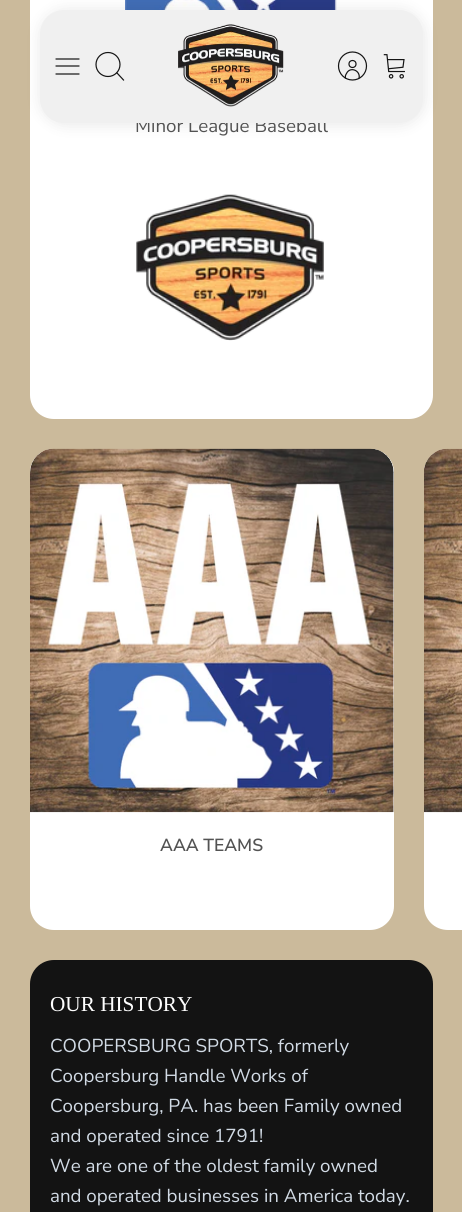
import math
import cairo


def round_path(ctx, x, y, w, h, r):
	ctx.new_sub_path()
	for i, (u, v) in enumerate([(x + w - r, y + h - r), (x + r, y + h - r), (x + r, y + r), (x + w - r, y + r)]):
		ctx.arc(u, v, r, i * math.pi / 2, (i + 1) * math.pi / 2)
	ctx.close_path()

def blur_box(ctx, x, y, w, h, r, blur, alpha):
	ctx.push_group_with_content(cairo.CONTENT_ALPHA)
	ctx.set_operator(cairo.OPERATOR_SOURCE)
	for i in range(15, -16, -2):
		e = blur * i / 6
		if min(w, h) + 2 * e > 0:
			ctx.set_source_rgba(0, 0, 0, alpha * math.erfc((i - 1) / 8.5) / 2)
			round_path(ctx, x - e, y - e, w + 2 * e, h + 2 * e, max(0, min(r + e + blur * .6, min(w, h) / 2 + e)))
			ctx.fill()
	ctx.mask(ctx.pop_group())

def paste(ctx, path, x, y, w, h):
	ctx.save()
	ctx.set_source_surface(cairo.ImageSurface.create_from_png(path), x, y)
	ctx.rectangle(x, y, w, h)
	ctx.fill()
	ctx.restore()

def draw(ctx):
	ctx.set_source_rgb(0.796, 0.729, 0.608)
	ctx.paint()
	ctx.set_source_rgb(1, 1, 1)
	round_path(ctx, 30, -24, 403, 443, 24)
	ctx.fill()
	paste(ctx, 'media/3.png', 125, 0, 212, 10)
	ctx.set_source_rgb(0, 0, 0)
	blur_box(ctx, 41, 11, 383, 113, 24, 7.5, 0.1)
	ctx.select_font_face('Nunito Sans')
	ctx.set_font_size(18.75)
	ctx.set_source_rgb(0.325, 0.325, 0.325)
	ctx.move_to(135, 132)
	ctx.show_text('Minor League Baseball')
	ctx.set_source_rgb(0.941, 0.941, 0.941)
	round_path(ctx, 40, 10, 383, 113, 24)
	ctx.fill()
	ctx.new_path()
	ctx.move_to(56, 66)
	ctx.line_to(79, 66)
	ctx.move_to(56, 59)
	ctx.line_to(79, 59)
	ctx.move_to(56, 74)
	ctx.line_to(79, 74)
	ctx.set_source_rgb(0.078, 0.078, 0.078)
	ctx.set_line_width(1.2)
	ctx.set_line_cap(cairo.LINE_CAP_ROUND)
	ctx.set_line_join(cairo.LINE_JOIN_ROUND)
	ctx.stroke()
	ctx.arc(108, 64.5, 12, 0, 2 * math.pi)
	ctx.set_line_cap(cairo.LINE_CAP_BUTT)
	ctx.set_line_join(cairo.LINE_JOIN_MITER)
	ctx.stroke()
	ctx.new_path()
	ctx.move_to(117, 73)
	ctx.line_to(123.5, 80)
	ctx.set_line_cap(cairo.LINE_CAP_SQUARE)
	ctx.stroke()
	paste(ctx, 'media/1.png', 178, 24, 106, 83)
	ctx.new_path()
	ctx.move_to(359, 78.5)
	ctx.curve_to(361, 70.5, 350, 66, 346.5, 73.5)
	ctx.curve_to(345.5, 75, 345, 76.5, 345.5, 78.5)
	ctx.set_line_cap(cairo.LINE_CAP_BUTT)
	ctx.stroke()
	ctx.arc(352.5, 64, 3.5, 0, 2 * math.pi)
	ctx.stroke()
	ctx.arc(352.5, 66, 14, 0, 2 * math.pi)
	ctx.stroke()
	paste(ctx, 'media/2.png', 383, 54, 22, 25)
	paste(ctx, 'media/4.png', 136, 194, 188, 147)
	ctx.set_source_rgb(1, 1, 1)
	round_path(ctx, 30, 449, 364, 481, 24)
	ctx.fill()
	ctx.new_path()
	ctx.move_to(54, 449)
	ctx.line_to(370, 449)
	ctx.curve_to(383.5, 449, 394, 459.5, 394, 473)
	ctx.line_to(394, 813)
	ctx.line_to(30, 813)
	ctx.line_to(30, 473)
	ctx.curve_to(30, 459.5, 40.5, 449, 54, 449)
	ctx.close_path()
	ctx.fill()
	paste(ctx, 'media/5.png', 30, 448, 364, 365)
	ctx.select_font_face('Nunito Sans SemiBold')
	ctx.set_font_size(17.5)
	ctx.set_source_rgb(0.325, 0.325, 0.325)
	ctx.move_to(160, 851)
	ctx.show_text('AAA TEAMS')
	ctx.set_source_rgb(1, 1, 1)
	ctx.new_path()
	ctx.move_to(448, 449)
	ctx.line_to(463, 449)
	ctx.line_to(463, 930)
	ctx.line_to(448, 930)
	ctx.curve_to(434.5, 930, 424, 919.5, 424, 906)
	ctx.line_to(424, 473)
	ctx.curve_to(424, 459.5, 434.5, 449, 448, 449)
	ctx.close_path()
	ctx.fill()
	ctx.new_path()
	ctx.move_to(448, 449)
	ctx.line_to(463, 449)
	ctx.line_to(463, 813)
	ctx.line_to(424, 813)
	ctx.line_to(424, 473)
	ctx.curve_to(424, 459.5, 434.5, 449, 448, 449)
	ctx.close_path()
	ctx.fill()
	paste(ctx, 'media/6.png', 424, 448, 38, 365)
	ctx.set_source_rgb(0.078, 0.078, 0.078)
	round_path(ctx, 30, 960, 403, 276, 24)
	ctx.fill()
	ctx.select_font_face('Liberation Serif')
	ctx.set_font_size(21.25)
	ctx.set_source_rgb(1, 1, 1)
	ctx.move_to(50, 1011)
	ctx.show_text('OUR HISTORY')
	ctx.select_font_face('Nunito Sans')
	ctx.set_font_size(18.75)
	ctx.set_source_rgb(0.824, 0.859, 0.898)
	for x, y, s in [
		(50, 1052, 'COOPERSBURG SPORTS, formerly'),
		(50, 1082, 'Coopersburg Handle Works of'),
		(50, 1112, 'Coopersburg, PA. has been Family owned'),
		(50, 1142, 'and operated since 1791!'),
		(50, 1172, 'We are one of the oldest family owned'),
		(50, 1202, 'and operated businesses in America today.'),
	]:
		ctx.move_to(x, y)
		ctx.show_text(s)


surface = cairo.ImageSurface(cairo.FORMAT_RGB24, 462, 1212)
ctx = cairo.Context(surface)
options = cairo.FontOptions()
options.set_hint_metrics(cairo.HINT_METRICS_OFF)
options.set_hint_style(cairo.HINT_STYLE_NONE)
ctx.set_font_options(options)
ctx.set_miter_limit(4)
draw(ctx)
surface.write_to_png('image.png')
